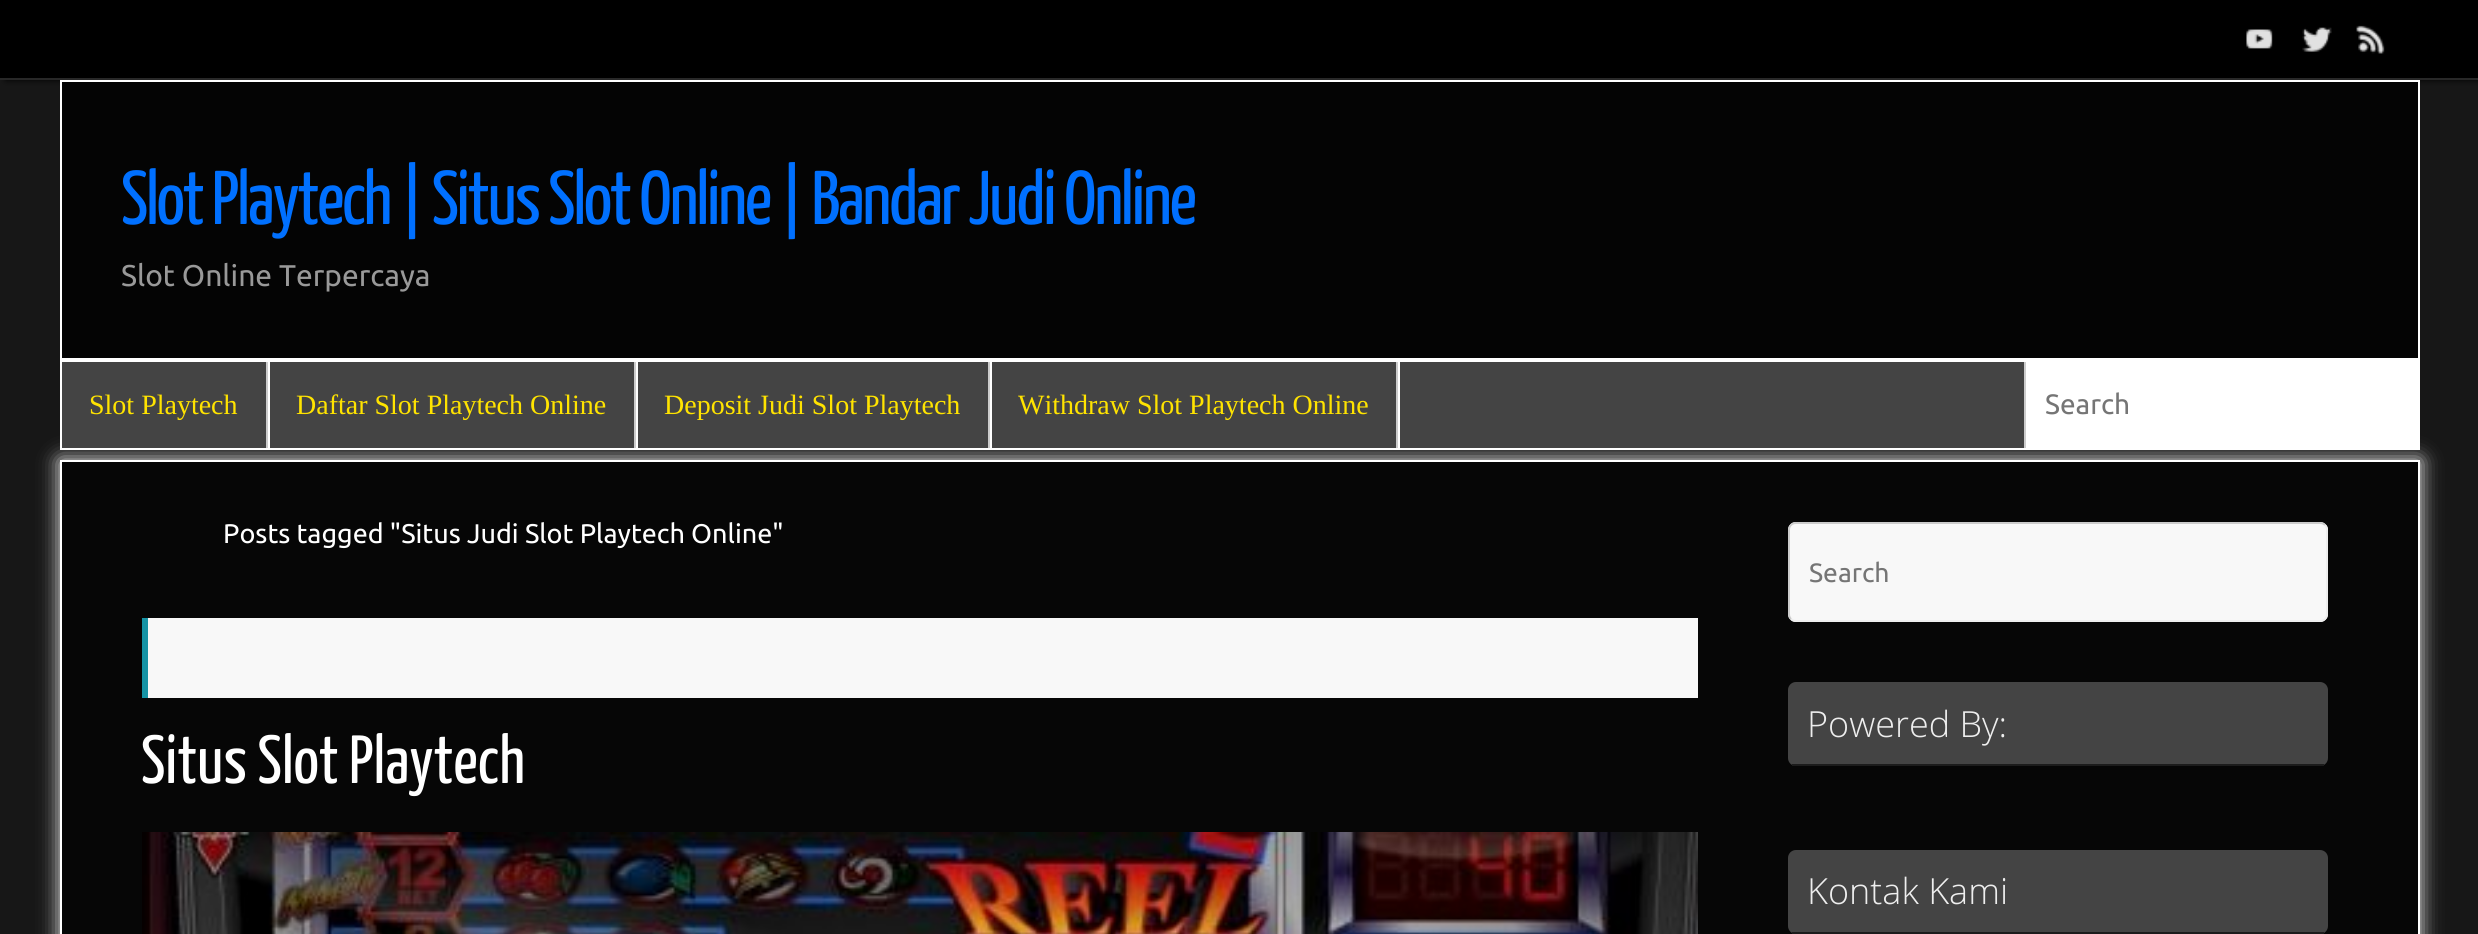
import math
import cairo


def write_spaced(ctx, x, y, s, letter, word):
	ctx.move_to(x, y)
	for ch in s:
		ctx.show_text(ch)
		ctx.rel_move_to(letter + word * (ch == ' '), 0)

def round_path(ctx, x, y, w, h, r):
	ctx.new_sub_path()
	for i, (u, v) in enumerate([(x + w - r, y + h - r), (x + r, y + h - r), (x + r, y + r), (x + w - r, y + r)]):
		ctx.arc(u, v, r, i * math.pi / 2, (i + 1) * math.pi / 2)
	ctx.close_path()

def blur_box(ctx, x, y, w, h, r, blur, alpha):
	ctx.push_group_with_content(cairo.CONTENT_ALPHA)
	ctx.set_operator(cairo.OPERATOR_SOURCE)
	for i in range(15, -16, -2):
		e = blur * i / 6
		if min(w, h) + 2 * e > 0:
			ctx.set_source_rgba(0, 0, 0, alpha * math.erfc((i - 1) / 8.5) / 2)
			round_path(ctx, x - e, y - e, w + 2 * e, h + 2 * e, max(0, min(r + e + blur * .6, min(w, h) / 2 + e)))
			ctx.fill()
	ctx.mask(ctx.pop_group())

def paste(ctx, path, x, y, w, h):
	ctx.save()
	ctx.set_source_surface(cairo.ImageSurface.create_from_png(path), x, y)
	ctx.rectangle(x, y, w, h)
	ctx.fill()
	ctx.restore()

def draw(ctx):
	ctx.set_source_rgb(0.09, 0.09, 0.09)
	ctx.paint()
	ctx.set_source_rgb(0, 0, 0)
	blur_box(ctx, 6, 0, 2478, 80, 0, 3, 1)
	ctx.set_source_rgb(0, 0, 0)
	ctx.rectangle(0, 0, 2478, 78)
	ctx.fill()
	ctx.set_source_rgb(0.157, 0.157, 0.157)
	ctx.rectangle(0, 78, 2478, 2)
	ctx.fill()
	paste(ctx, 'media/1.png', 2246, 29, 27, 20)
	paste(ctx, 'media/2.png', 2302, 27, 30, 25)
	paste(ctx, 'media/3.png', 2356, 25, 29, 29)
	ctx.set_source_rgba(0, 0, 0, 0.81)
	ctx.rectangle(61, 81, 2358, 278)
	ctx.fill_preserve()
	ctx.set_source_rgb(1, 1, 1)
	ctx.stroke()
	ctx.select_font_face('Yanone Kaffeesatz')
	ctx.set_font_size(76)
	ctx.set_source_rgb(0, 0.439, 1)
	write_spaced(ctx, 121, 224, 'Slot Playtech | Situs Slot Online | Bandar Judi Online', -2.28, 0)
	ctx.select_font_face('Ubuntu')
	ctx.set_font_size(30)
	ctx.set_source_rgb(0.6, 0.6, 0.6)
	ctx.move_to(121, 286)
	ctx.show_text('Slot Online Terpercaya')
	ctx.set_source_rgb(0.969, 0.969, 0.969)
	blur_box(ctx, 60, 460, 2360, 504, 0, 10, 1)
	ctx.set_source_rgb(0.267, 0.267, 0.267)
	ctx.rectangle(62, 362, 1962, 86)
	ctx.fill()
	ctx.rectangle(61, 361, 2358, 88)
	ctx.set_source_rgb(1, 1, 1)
	ctx.stroke()
	ctx.rectangle(268, 362, 2, 86)
	ctx.fill()
	ctx.set_source_rgb(0.8, 0.8, 0.8)
	ctx.rectangle(266, 362, 2, 86)
	ctx.fill()
	ctx.select_font_face('Liberation Serif')
	ctx.set_font_size(28)
	ctx.set_source_rgb(1, 0.89, 0)
	ctx.move_to(89, 414)
	ctx.show_text('Slot Playtech')
	ctx.set_source_rgb(1, 1, 1)
	ctx.rectangle(636, 362, 2, 86)
	ctx.fill()
	ctx.set_source_rgb(0.8, 0.8, 0.8)
	ctx.rectangle(634, 362, 2, 86)
	ctx.fill()
	ctx.set_source_rgb(1, 0.89, 0)
	ctx.move_to(296, 414)
	ctx.show_text('Daftar Slot Playtech Online')
	ctx.set_source_rgb(1, 1, 1)
	ctx.rectangle(990, 362, 2, 86)
	ctx.fill()
	ctx.set_source_rgb(0.8, 0.8, 0.8)
	ctx.rectangle(988, 362, 2, 86)
	ctx.fill()
	ctx.set_source_rgb(1, 0.89, 0)
	ctx.move_to(664, 414)
	ctx.show_text('Deposit Judi Slot Playtech')
	ctx.set_source_rgb(1, 1, 1)
	ctx.rectangle(1398, 362, 2, 86)
	ctx.fill()
	ctx.set_source_rgb(0.8, 0.8, 0.8)
	ctx.rectangle(1396, 362, 2, 86)
	ctx.fill()
	ctx.set_source_rgb(1, 0.89, 0)
	ctx.move_to(1018, 414)
	ctx.show_text('Withdraw Slot Playtech Online')
	ctx.set_source_rgb(1, 1, 1)
	ctx.rectangle(2026, 362, 392, 86)
	ctx.fill()
	ctx.set_source_rgb(0.8, 0.8, 0.8)
	ctx.rectangle(2024, 362, 2, 86)
	ctx.fill()
	ctx.select_font_face('Ubuntu')
	ctx.set_source_rgb(0.459, 0.459, 0.459)
	ctx.move_to(2045, 414)
	ctx.show_text('Search')
	ctx.set_source_rgb(0.027, 0.027, 0.027)
	ctx.rectangle(61, 461, 2358, 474)
	ctx.fill_preserve()
	ctx.set_source_rgb(1, 1, 1)
	ctx.stroke()
	ctx.set_font_size(27)
	ctx.move_to(223, 543)
	ctx.show_text('Posts tagged "Situs Judi Slot Playtech Online"')
	ctx.set_source_rgb(0.969, 0.969, 0.969)
	ctx.rectangle(148, 618, 1550, 80)
	ctx.fill()
	ctx.set_source_rgb(0.086, 0.576, 0.647)
	ctx.rectangle(142, 618, 6, 80)
	ctx.fill()
	ctx.select_font_face('Yanone Kaffeesatz')
	ctx.set_font_size(68)
	ctx.set_source_rgb(1, 1, 1)
	ctx.move_to(141, 783)
	ctx.show_text('Situs Slot Playtech')
	paste(ctx, 'media/4.png', 142, 832, 1556, 102)
	ctx.set_source_rgb(0.969, 0.969, 0.969)
	round_path(ctx, 1788, 522, 540, 100, 8)
	ctx.fill()
	ctx.new_path()
	ctx.move_to(2325, 525)
	ctx.curve_to(2326.5, 526.5, 2327, 528, 2327, 530)
	ctx.line_to(2327, 614)
	ctx.curve_to(2327, 616, 2326.5, 617.5, 2325, 619)
	ctx.curve_to(2323.5, 620.5, 2322, 621, 2320, 621)
	ctx.line_to(1796, 621)
	ctx.curve_to(1794, 621, 1792.5, 620.5, 1791, 619)
	ctx.set_source_rgb(0.933, 0.933, 0.933)
	ctx.stroke()
	ctx.new_path()
	ctx.move_to(1791, 619)
	ctx.curve_to(1789.5, 617.5, 1789, 616, 1789, 614)
	ctx.line_to(1789, 530)
	ctx.curve_to(1789, 528, 1789.5, 526.5, 1791, 525)
	ctx.curve_to(1792.5, 523.5, 1794, 523, 1796, 523)
	ctx.line_to(2320, 523)
	ctx.curve_to(2322, 523, 2323.5, 523.5, 2325, 525)
	ctx.set_source_rgb(0.8, 0.8, 0.8)
	ctx.stroke()
	ctx.select_font_face('Ubuntu')
	ctx.set_font_size(26.5)
	ctx.set_source_rgb(0.459, 0.459, 0.459)
	ctx.move_to(1809, 582)
	ctx.show_text('Search')
	ctx.set_source_rgb(0.267, 0.267, 0.267)
	round_path(ctx, 1788, 682, 540, 84, 8)
	ctx.fill()
	ctx.set_source_rgb(0.11, 0.11, 0.11)
	ctx.rectangle(1792, 764, 532, 2)
	ctx.fill()
	ctx.select_font_face('Open Sans Light')
	ctx.set_font_size(36)
	ctx.set_source_rgb(0.933, 0.933, 0.933)
	ctx.move_to(1807, 737)
	ctx.show_text('Powered By:')
	ctx.set_source_rgb(0.267, 0.267, 0.267)
	round_path(ctx, 1788, 850, 540, 84, 8)
	ctx.fill()
	ctx.set_source_rgb(0.11, 0.11, 0.11)
	ctx.rectangle(1792, 932, 532, 2)
	ctx.fill()
	ctx.set_source_rgb(0.933, 0.933, 0.933)
	ctx.move_to(1807, 904)
	ctx.show_text('Kontak Kami')


surface = cairo.ImageSurface(cairo.FORMAT_RGB24, 2478, 934)
ctx = cairo.Context(surface)
options = cairo.FontOptions()
options.set_hint_metrics(cairo.HINT_METRICS_OFF)
options.set_hint_style(cairo.HINT_STYLE_NONE)
ctx.set_font_options(options)
ctx.set_miter_limit(4)
draw(ctx)
surface.write_to_png('image.png')
